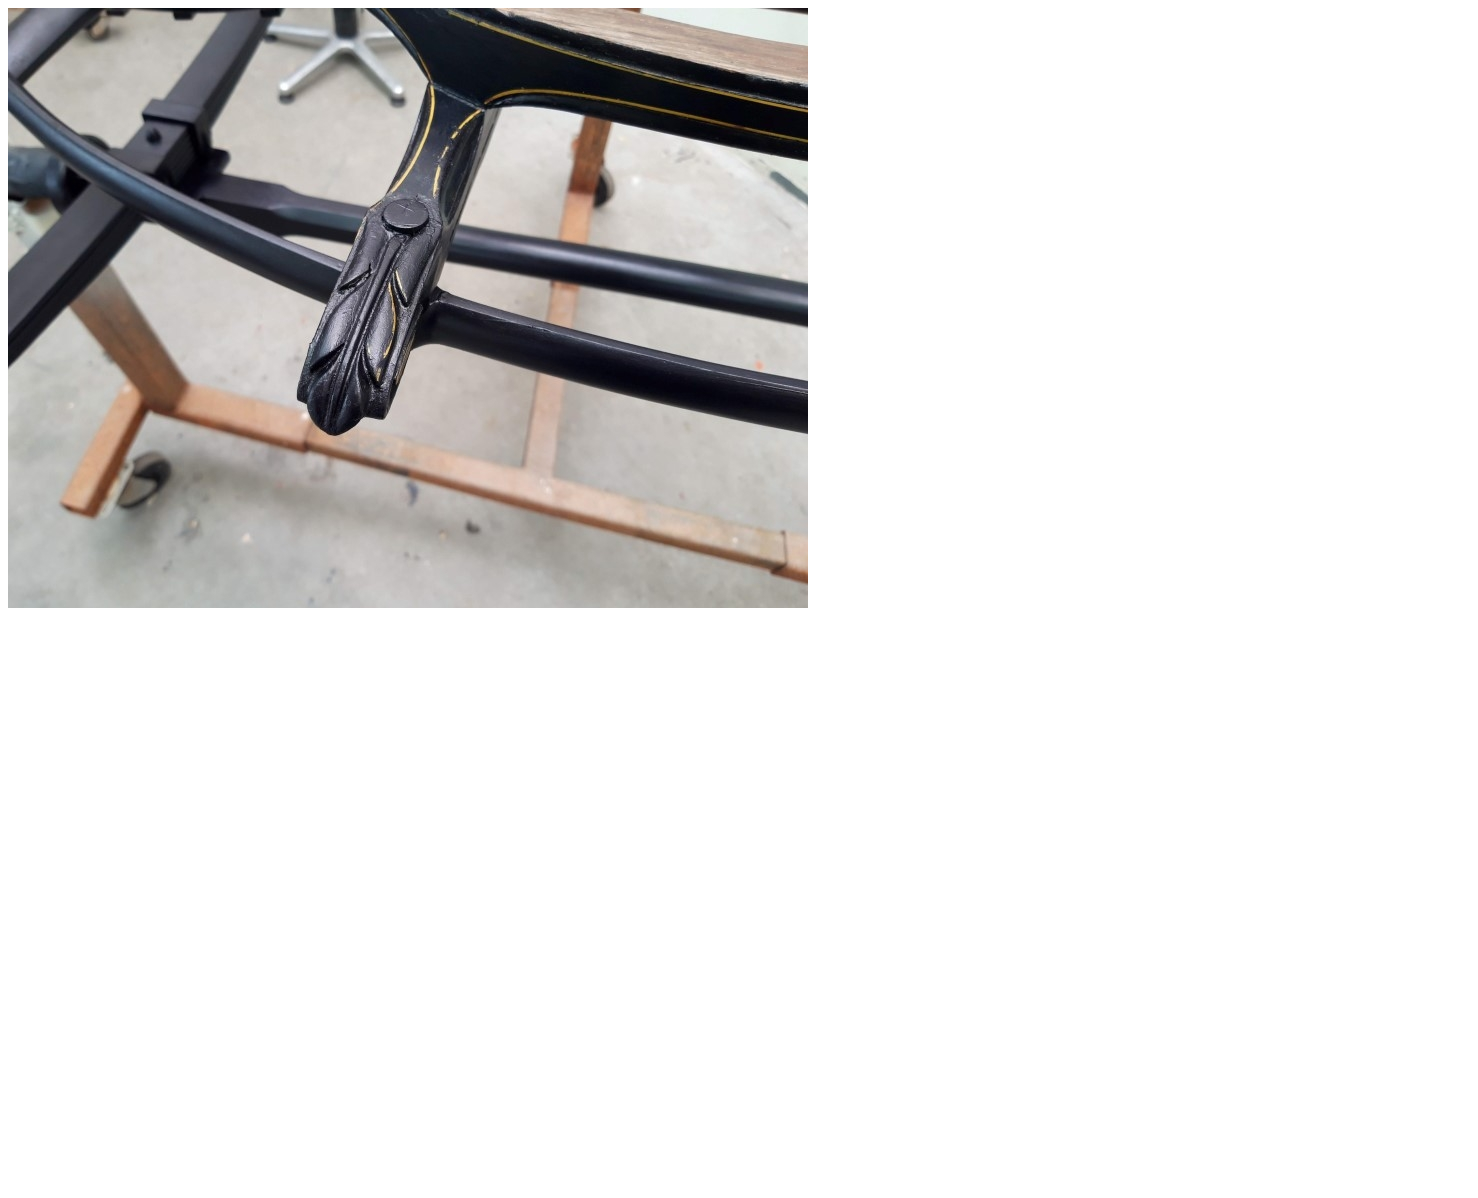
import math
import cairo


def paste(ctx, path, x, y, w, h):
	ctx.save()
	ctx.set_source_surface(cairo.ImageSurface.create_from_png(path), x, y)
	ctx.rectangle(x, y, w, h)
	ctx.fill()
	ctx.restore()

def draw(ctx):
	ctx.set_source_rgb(1, 1, 1)
	ctx.paint()
	paste(ctx, 'media/1.png', 8, 8, 800, 600)


surface = cairo.ImageSurface(cairo.FORMAT_RGB24, 1478, 1198)
ctx = cairo.Context(surface)
options = cairo.FontOptions()
options.set_hint_metrics(cairo.HINT_METRICS_OFF)
options.set_hint_style(cairo.HINT_STYLE_NONE)
ctx.set_font_options(options)
ctx.set_miter_limit(4)
draw(ctx)
surface.write_to_png('image.png')
